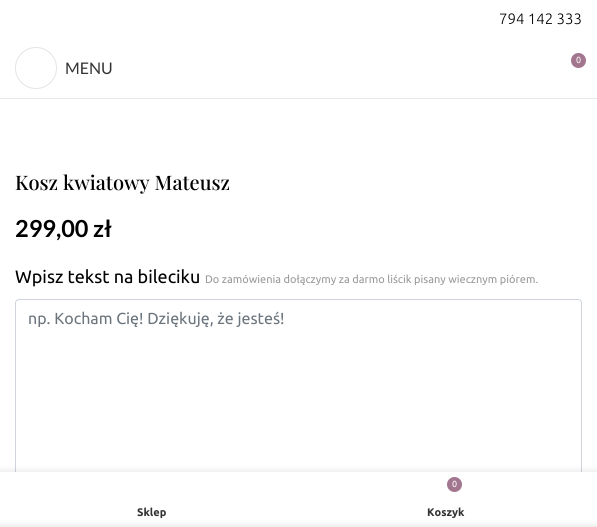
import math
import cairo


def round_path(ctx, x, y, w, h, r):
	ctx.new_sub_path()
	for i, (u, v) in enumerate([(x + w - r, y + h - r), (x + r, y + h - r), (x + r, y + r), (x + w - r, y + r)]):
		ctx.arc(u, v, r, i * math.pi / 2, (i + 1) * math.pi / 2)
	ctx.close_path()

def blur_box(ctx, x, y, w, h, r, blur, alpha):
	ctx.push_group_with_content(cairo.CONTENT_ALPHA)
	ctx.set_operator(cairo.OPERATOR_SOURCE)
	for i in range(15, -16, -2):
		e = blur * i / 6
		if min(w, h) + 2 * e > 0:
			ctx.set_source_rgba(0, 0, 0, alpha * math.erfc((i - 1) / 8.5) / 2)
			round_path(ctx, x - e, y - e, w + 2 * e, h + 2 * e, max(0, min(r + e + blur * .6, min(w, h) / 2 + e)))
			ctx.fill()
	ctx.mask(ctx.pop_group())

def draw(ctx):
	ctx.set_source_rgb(1, 1, 1)
	ctx.paint()
	ctx.select_font_face('Ubuntu Light')
	ctx.set_font_size(15)
	ctx.set_source_rgb(0, 0, 0)
	ctx.move_to(499, 24)
	ctx.show_text('794 142 333')
	ctx.set_source_rgb(0.91, 0.91, 0.91)
	ctx.rectangle(0, 98, 597, 1)
	ctx.fill()
	ctx.set_source_rgb(0.635, 0.463, 0.557)
	ctx.arc(578.5, 60.5, 7.5, 0, 2 * math.pi)
	ctx.fill()
	ctx.select_font_face('Ubuntu')
	ctx.set_font_size(9)
	ctx.set_source_rgb(1, 1, 1)
	ctx.move_to(576, 63)
	ctx.show_text('0')
	ctx.new_path()
	ctx.arc(36, 68, 20.5, 0, 2 * math.pi)
	ctx.set_source_rgb(0.894, 0.894, 0.894)
	ctx.set_line_width(1)
	ctx.stroke()
	ctx.select_font_face('Lato')
	ctx.set_font_size(16)
	ctx.set_source_rgb(0.2, 0.2, 0.2)
	ctx.move_to(65, 74)
	ctx.show_text('MENU')
	ctx.select_font_face('Playfair Display Medium')
	ctx.set_font_size(20)
	ctx.set_source_rgb(0, 0, 0)
	ctx.move_to(15, 190)
	ctx.show_text('Kosz kwiatowy Mateusz')
	ctx.select_font_face('Lato', cairo.FONT_SLANT_NORMAL, cairo.FONT_WEIGHT_BOLD)
	ctx.set_font_size(23.5)
	ctx.move_to(15, 237)
	ctx.show_text('299,00 zł')
	ctx.select_font_face('Ubuntu')
	ctx.set_font_size(18)
	ctx.move_to(15, 283)
	ctx.show_text('Wpisz tekst na bileciku')
	ctx.set_font_size(11)
	ctx.set_source_rgb(0.6, 0.6, 0.6)
	ctx.move_to(205, 283)
	ctx.show_text('Do zamówienia dołączymy za darmo liścik pisany wiecznym piórem.')
	round_path(ctx, 15.5, 299.5, 566, 189, 3.5)
	ctx.set_source_rgb(0.808, 0.831, 0.855)
	ctx.stroke()
	ctx.set_font_size(16)
	ctx.set_source_rgb(0.424, 0.459, 0.49)
	ctx.move_to(28, 324)
	ctx.show_text('np. Kocham Cię! Dziękuję, że jesteś!')
	ctx.set_source_rgb(0, 0, 0)
	blur_box(ctx, 0, 472, 597, 55, 0, 4.5, 0.12)
	ctx.set_source_rgb(1, 1, 1)
	ctx.rectangle(0, 472, 597, 55)
	ctx.fill()
	ctx.select_font_face('Ubuntu', cairo.FONT_SLANT_NORMAL, cairo.FONT_WEIGHT_BOLD)
	ctx.set_font_size(11)
	ctx.set_source_rgb(0.2, 0.2, 0.2)
	ctx.move_to(137, 516)
	ctx.show_text('Sklep')
	ctx.set_source_rgb(0.635, 0.463, 0.557)
	ctx.new_path()
	ctx.arc(454.5, 484.5, 7.5, 0, 2 * math.pi)
	ctx.fill()
	ctx.select_font_face('Ubuntu')
	ctx.set_font_size(9)
	ctx.set_source_rgb(1, 1, 1)
	ctx.move_to(452, 487)
	ctx.show_text('0')
	ctx.select_font_face('Ubuntu', cairo.FONT_SLANT_NORMAL, cairo.FONT_WEIGHT_BOLD)
	ctx.set_font_size(11)
	ctx.set_source_rgb(0.2, 0.2, 0.2)
	ctx.move_to(427, 516)
	ctx.show_text('Koszyk')
	ctx.set_source_rgb(0, 0, 0)
	blur_box(ctx, 0, 527, 597, 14, 0, 4.5, 0.14)


surface = cairo.ImageSurface(cairo.FORMAT_RGB24, 597, 527)
ctx = cairo.Context(surface)
options = cairo.FontOptions()
options.set_hint_metrics(cairo.HINT_METRICS_OFF)
options.set_hint_style(cairo.HINT_STYLE_NONE)
ctx.set_font_options(options)
ctx.set_miter_limit(4)
draw(ctx)
surface.write_to_png('image.png')
